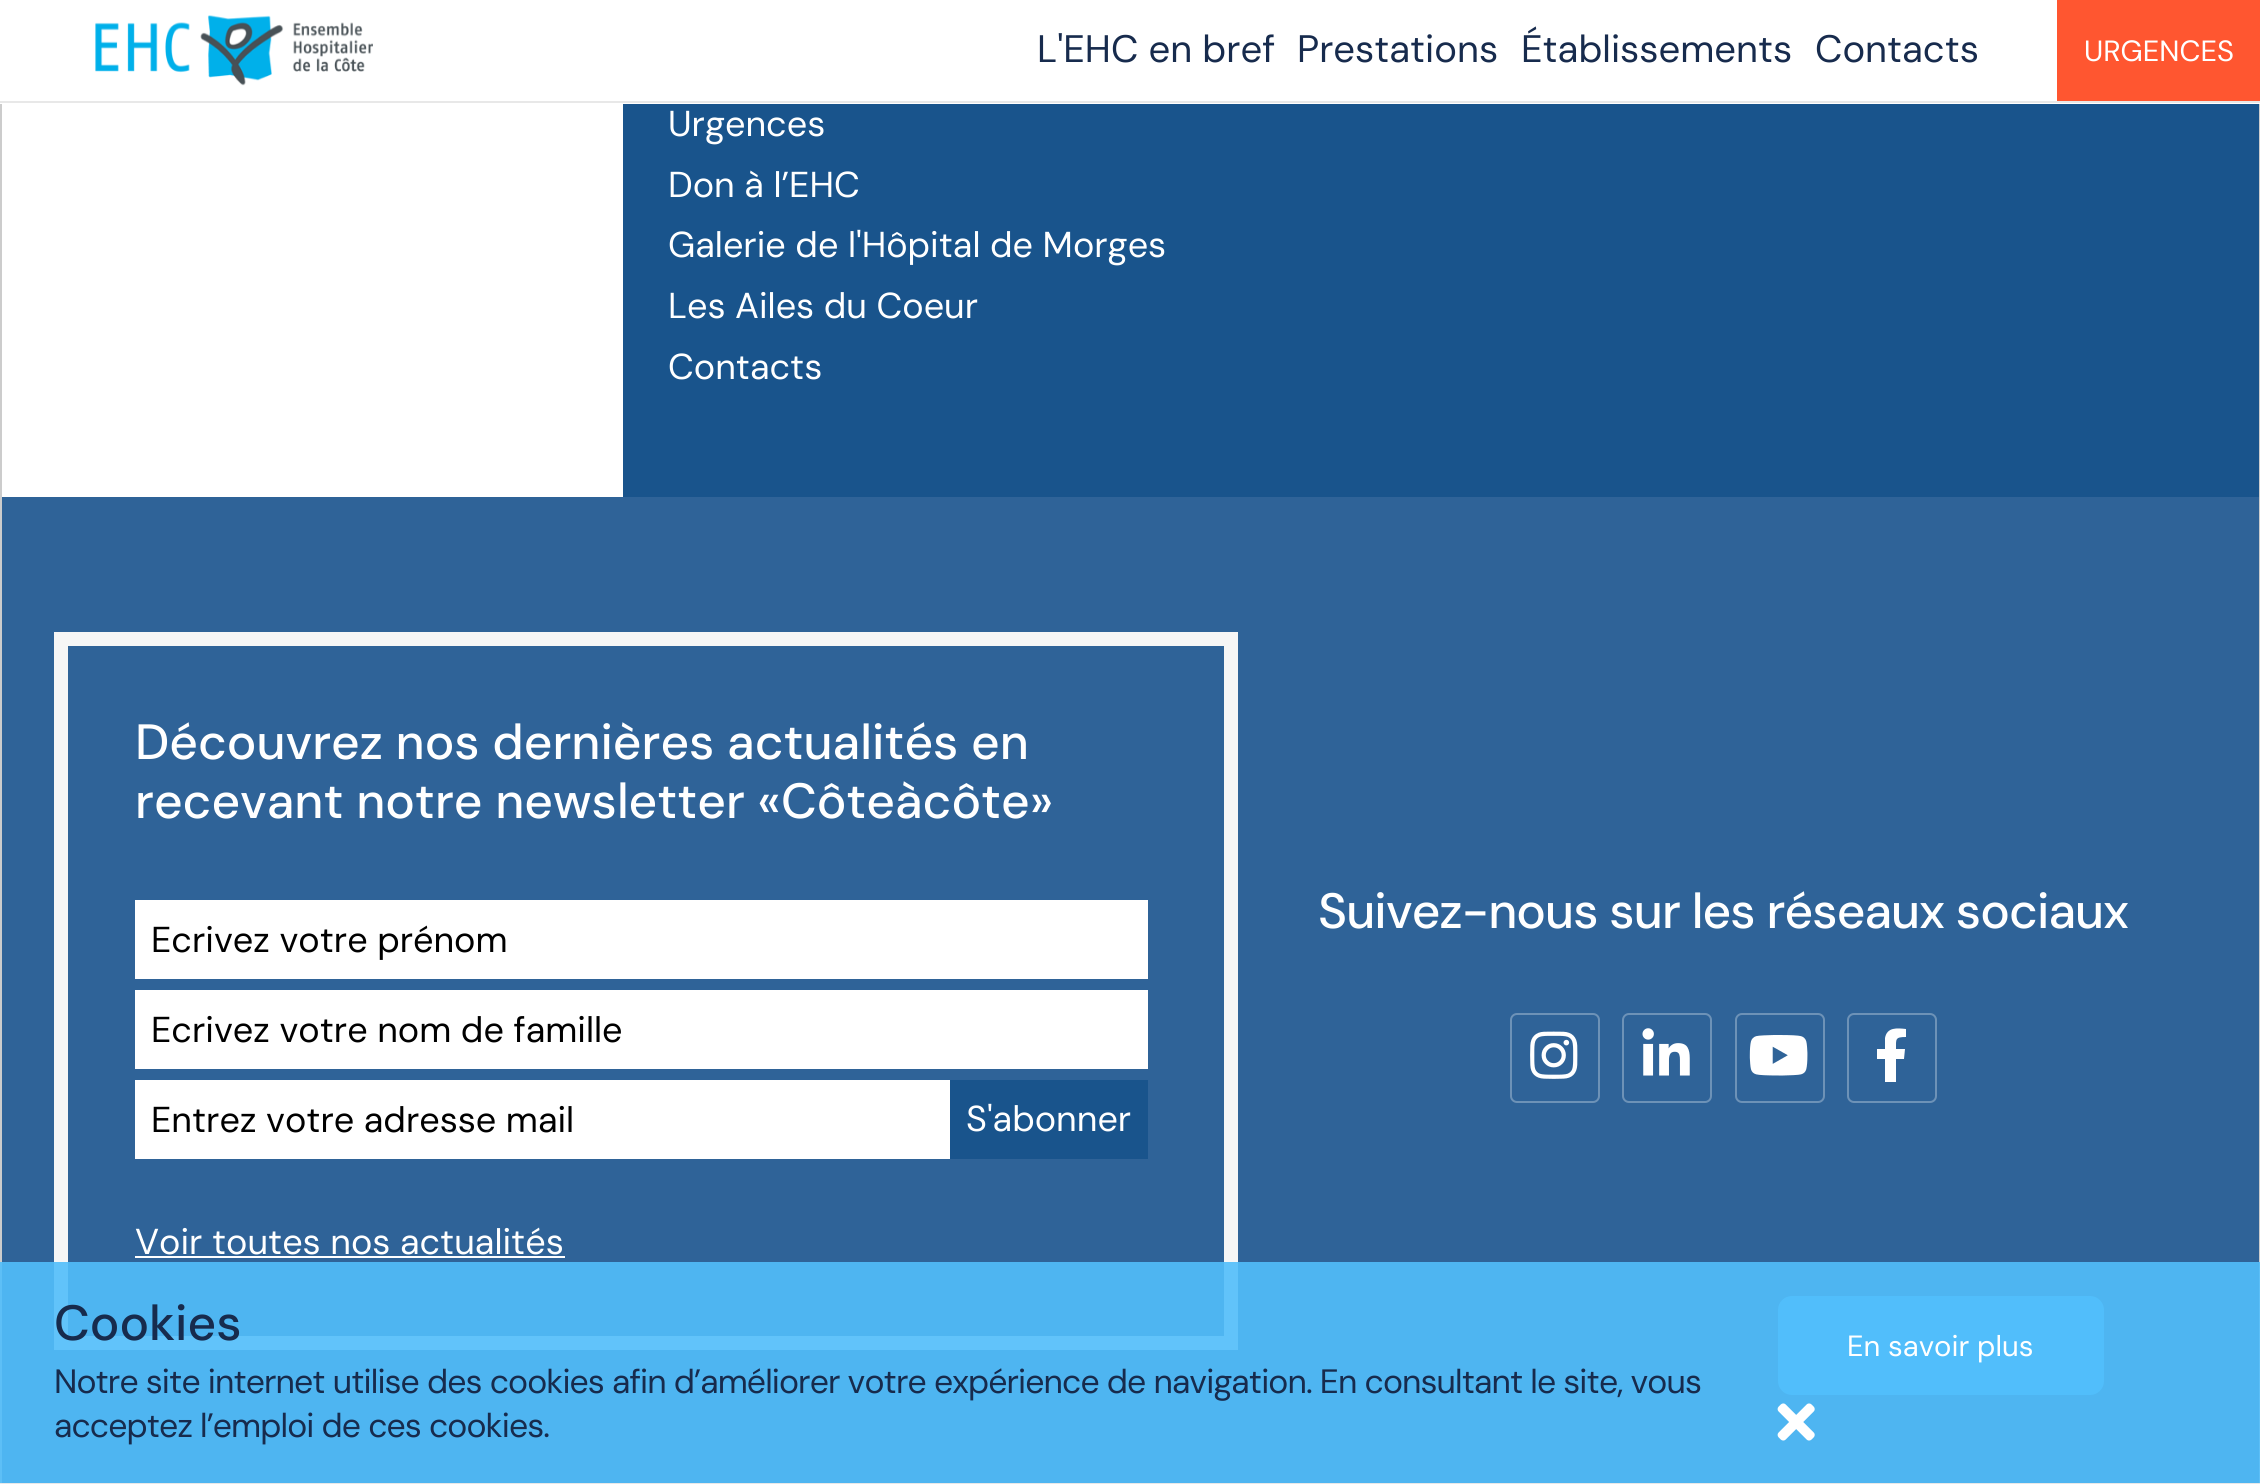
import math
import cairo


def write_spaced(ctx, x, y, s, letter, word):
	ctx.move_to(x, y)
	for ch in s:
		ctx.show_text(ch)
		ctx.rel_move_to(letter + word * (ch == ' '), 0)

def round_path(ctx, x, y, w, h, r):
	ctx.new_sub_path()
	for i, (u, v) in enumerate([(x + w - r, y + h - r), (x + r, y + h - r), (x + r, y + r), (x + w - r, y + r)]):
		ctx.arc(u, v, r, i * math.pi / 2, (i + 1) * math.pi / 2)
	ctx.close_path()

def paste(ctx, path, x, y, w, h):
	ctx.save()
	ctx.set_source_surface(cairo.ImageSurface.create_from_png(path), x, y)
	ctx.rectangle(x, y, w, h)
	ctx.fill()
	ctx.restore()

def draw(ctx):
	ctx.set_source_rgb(0.098, 0.329, 0.549)
	ctx.paint()
	ctx.set_source_rgb(1, 1, 1)
	ctx.rectangle(0, 0, 2260, 104)
	ctx.fill()
	ctx.set_source_rgb(0.91, 0.91, 0.91)
	ctx.rectangle(0, 101, 2260, 2)
	ctx.fill()
	paste(ctx, 'media/1.png', 95, 15, 278, 71)
	ctx.select_font_face('DM Sans')
	ctx.set_font_size(38.25)
	ctx.set_source_rgb(0.09, 0.169, 0.302)
	for x, y, s in [
		(1037, 62, 'L\'EHC en bref'),
		(1297, 62, 'Prestations'),
		(1521, 62, 'Établissements'),
		(1815, 62, 'Contacts'),
	]:
		ctx.move_to(x, y)
		ctx.show_text(s)
	ctx.set_source_rgb(1, 0.337, 0.188)
	ctx.rectangle(2057, 0, 203, 101)
	ctx.fill()
	ctx.set_font_size(29.25)
	ctx.set_source_rgb(1, 1, 1)
	ctx.move_to(2084, 61)
	ctx.show_text('URGENCES')
	ctx.set_source_rgb(0.8, 0.8, 0.8)
	ctx.rectangle(2259, 104, 1, 1380)
	ctx.rectangle(0, 104, 2, 1380)
	ctx.fill()
	ctx.set_source_rgb(0.184, 0.388, 0.596)
	ctx.rectangle(2, 497, 2257, 986)
	ctx.fill()
	ctx.rectangle(61, 639, 1170, 704)
	ctx.set_source_rgb(0.961, 0.961, 0.961)
	ctx.set_line_width(14)
	ctx.stroke()
	ctx.set_source_rgba(0.318, 0.745, 0.984, 0.9)
	ctx.rectangle(0, 1262, 2260, 221)
	ctx.fill()
	ctx.set_source_rgb(0.91, 0.91, 0.91)
	ctx.rectangle(0, 1483, 2260, 1)
	ctx.fill()
	ctx.select_font_face('DM Sans Medium')
	ctx.set_font_size(49.5)
	ctx.set_source_rgb(0.09, 0.169, 0.302)
	ctx.move_to(54, 1340)
	ctx.show_text('Cookies')
	ctx.select_font_face('DM Sans')
	ctx.set_font_size(33.75)
	write_spaced(ctx, 54, 1393, 'Notre site internet utilise des cookies afin d’améliorer votre expérience de navigation. En consultant le site, vous', -0.9, 0)
	write_spaced(ctx, 54, 1437, 'acceptez l’emploi de ces cookies.', -0.9, 0)
	ctx.set_source_rgb(0.318, 0.745, 0.984)
	round_path(ctx, 1778, 1296, 326, 99, 14)
	ctx.fill()
	ctx.set_font_size(29.25)
	ctx.set_source_rgb(1, 1, 1)
	ctx.move_to(1847, 1356)
	ctx.show_text('En savoir plus')
	paste(ctx, 'media/2.png', 1777, 1403, 38, 38)
	ctx.rectangle(2, 104, 621, 393)
	ctx.fill()
	ctx.set_font_size(36)
	for x, y, s in [
		(668, 136, 'Urgences'),
		(668, 197, 'Don à l’EHC'),
		(668, 257, 'Galerie de l\'Hôpital de Morges'),
		(668, 318, 'Les Ailes du Coeur'),
		(668, 379, 'Contacts'),
	]:
		ctx.move_to(x, y)
		ctx.show_text(s)
	ctx.select_font_face('DM Sans Medium')
	ctx.set_font_size(49.5)
	ctx.move_to(135, 759)
	ctx.show_text('Découvrez nos dernières actualités en')
	ctx.move_to(135, 818)
	ctx.show_text('recevant notre newsletter «Côteàcôte»')
	ctx.rectangle(135, 900, 1013, 79)
	ctx.fill()
	ctx.select_font_face('DM Sans')
	ctx.set_font_size(36)
	ctx.set_source_rgb(0, 0, 0)
	ctx.move_to(151, 952)
	ctx.show_text('Ecrivez votre prénom')
	ctx.set_source_rgb(1, 1, 1)
	ctx.rectangle(135, 990, 1013, 79)
	ctx.fill()
	ctx.set_source_rgb(0, 0, 0)
	ctx.move_to(151, 1042)
	ctx.show_text('Ecrivez votre nom de famille')
	ctx.set_source_rgb(1, 1, 1)
	ctx.rectangle(135, 1080, 815, 79)
	ctx.fill()
	ctx.set_source_rgb(0, 0, 0)
	ctx.move_to(151, 1132)
	ctx.show_text('Entrez votre adresse mail')
	ctx.set_source_rgb(0.098, 0.329, 0.549)
	ctx.rectangle(950, 1080, 198, 79)
	ctx.fill()
	ctx.set_source_rgb(1, 1, 1)
	ctx.move_to(966, 1131)
	ctx.show_text('S\'abonner')
	ctx.move_to(135, 1254)
	ctx.show_text('Voir toutes nos actualités')
	ctx.rectangle(135, 1256, 430, 2)
	ctx.fill()
	ctx.select_font_face('DM Sans Medium')
	ctx.set_font_size(49.5)
	write_spaced(ctx, 1318, 928, 'Suivez-nous sur les réseaux sociaux', -0.9, 0)
	round_path(ctx, 1511, 1014, 88, 88, 6)
	ctx.set_source_rgb(0.427, 0.573, 0.718)
	ctx.set_line_width(2)
	ctx.stroke()
	paste(ctx, 'media/3.png', 1530, 1031, 48, 48)
	round_path(ctx, 1623, 1014, 88, 88, 6)
	ctx.stroke()
	paste(ctx, 'media/4.png', 1642, 1028, 48, 48)
	round_path(ctx, 1736, 1014, 88, 88, 6)
	ctx.stroke()
	paste(ctx, 'media/5.png', 1749, 1035, 59, 41)
	round_path(ctx, 1848, 1014, 88, 88, 6)
	ctx.stroke()
	ctx.set_source_rgb(1, 1, 1)
	ctx.new_path()
	ctx.move_to(1904, 1059)
	ctx.line_to(1896, 1059)
	ctx.line_to(1896, 1082)
	ctx.line_to(1885, 1082)
	ctx.line_to(1885, 1059)
	ctx.line_to(1877, 1059)
	ctx.line_to(1877, 1049)
	ctx.line_to(1885, 1049)
	ctx.line_to(1885, 1038)
	ctx.curve_to(1887, 1027, 1897, 1028, 1906, 1029)
	ctx.line_to(1906, 1037)
	ctx.curve_to(1895, 1037, 1896, 1039, 1896, 1049)
	ctx.line_to(1905, 1049)
	ctx.close_path()
	ctx.fill()


surface = cairo.ImageSurface(cairo.FORMAT_RGB24, 2260, 1484)
ctx = cairo.Context(surface)
options = cairo.FontOptions()
options.set_hint_metrics(cairo.HINT_METRICS_OFF)
options.set_hint_style(cairo.HINT_STYLE_NONE)
ctx.set_font_options(options)
ctx.set_miter_limit(4)
draw(ctx)
surface.write_to_png('image.png')
